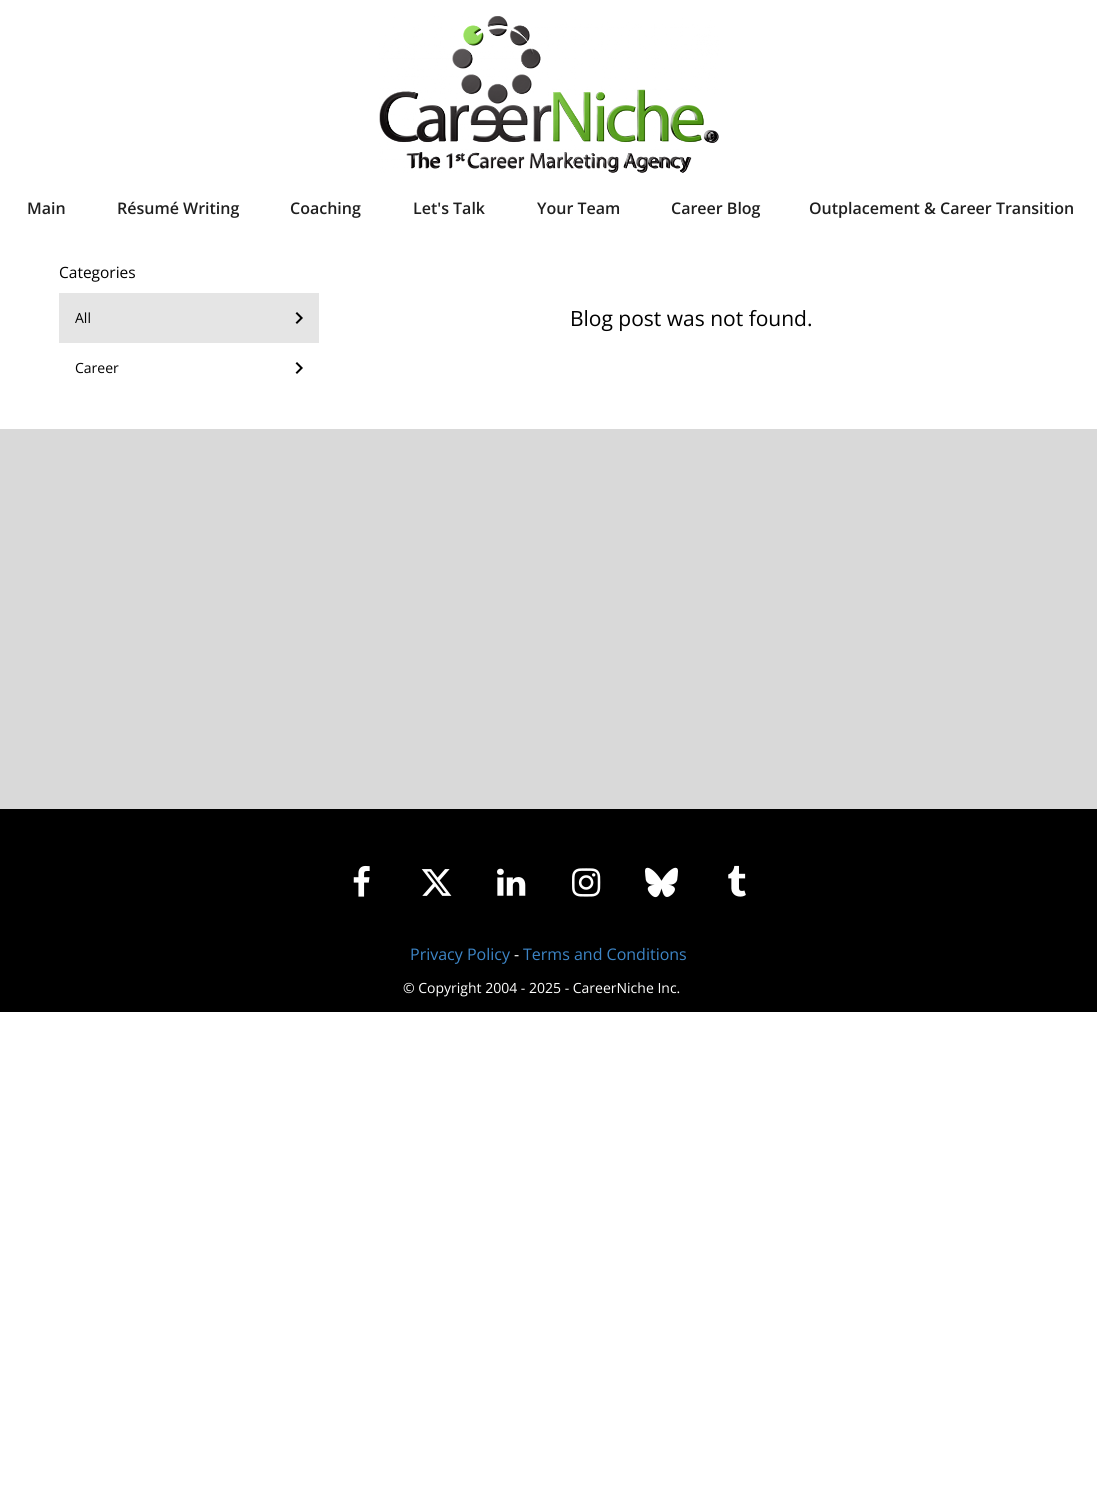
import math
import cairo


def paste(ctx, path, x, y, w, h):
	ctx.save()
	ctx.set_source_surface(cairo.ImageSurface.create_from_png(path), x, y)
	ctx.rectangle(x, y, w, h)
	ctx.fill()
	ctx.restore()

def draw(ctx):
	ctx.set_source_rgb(1, 1, 1)
	ctx.paint()
	paste(ctx, 'media/1.png', 379, 16, 340, 157)
	ctx.select_font_face('Open Sans SemiBold')
	ctx.set_font_size(16)
	ctx.set_source_rgb(0.122, 0.122, 0.122)
	for x, y, s in [
		(27, 214, 'Main'),
		(117, 214, 'Résumé Writing'),
		(290, 214, 'Coaching'),
		(413, 214, 'Let\'s Talk'),
		(537, 214, 'Your Team'),
		(671, 214, 'Career Blog'),
		(809, 214, 'Outplacement & Career Transition'),
	]:
		ctx.move_to(x, y)
		ctx.show_text(s)
	ctx.select_font_face('Open Sans')
	ctx.set_font_size(15.5)
	ctx.set_source_rgb(0, 0, 0)
	ctx.move_to(59, 278)
	ctx.show_text('Categories')
	ctx.set_source_rgb(0.898, 0.898, 0.898)
	ctx.rectangle(59, 293, 260, 50)
	ctx.fill()
	ctx.set_font_size(14)
	ctx.set_source_rgb(0, 0, 0)
	ctx.move_to(75, 323)
	ctx.show_text('All')
	paste(ctx, 'media/2.png', 295, 312, 8, 12)
	ctx.move_to(75, 373)
	ctx.show_text('Career')
	paste(ctx, 'media/3.png', 295, 362, 8, 12)
	ctx.set_font_size(21)
	ctx.move_to(570, 326)
	ctx.show_text('Blog post was not found.')
	ctx.set_source_rgb(0.851, 0.851, 0.851)
	ctx.rectangle(0, 429, 1097, 380)
	ctx.fill()
	ctx.set_source_rgb(0, 0, 0)
	ctx.rectangle(0, 809, 1097, 203)
	ctx.fill()
	paste(ctx, 'media/4.png', 353, 865, 17, 32)
	paste(ctx, 'media/5.png', 421, 869, 31, 27)
	paste(ctx, 'media/6.png', 497, 868, 29, 28)
	paste(ctx, 'media/7.png', 572, 868, 29, 29)
	paste(ctx, 'media/8.png', 645, 867, 33, 31)
	paste(ctx, 'media/9.png', 728, 865, 18, 32)
	ctx.set_font_size(16)
	ctx.set_source_rgb(0.239, 0.522, 0.776)
	ctx.move_to(410, 960)
	ctx.show_text('Privacy Policy')
	ctx.set_source_rgb(1, 1, 0.996)
	ctx.move_to(514, 960)
	ctx.show_text('-')
	ctx.set_source_rgb(0.239, 0.522, 0.776)
	ctx.move_to(523, 960)
	ctx.show_text('Terms and Conditions')
	ctx.set_font_size(14)
	ctx.set_source_rgb(1, 1, 0.996)
	ctx.move_to(403, 993)
	ctx.show_text('© Copyright 2004 - 2025 - CareerNiche Inc.')


surface = cairo.ImageSurface(cairo.FORMAT_RGB24, 1097, 1499)
ctx = cairo.Context(surface)
options = cairo.FontOptions()
options.set_hint_metrics(cairo.HINT_METRICS_OFF)
options.set_hint_style(cairo.HINT_STYLE_NONE)
ctx.set_font_options(options)
ctx.set_miter_limit(4)
draw(ctx)
surface.write_to_png('image.png')
